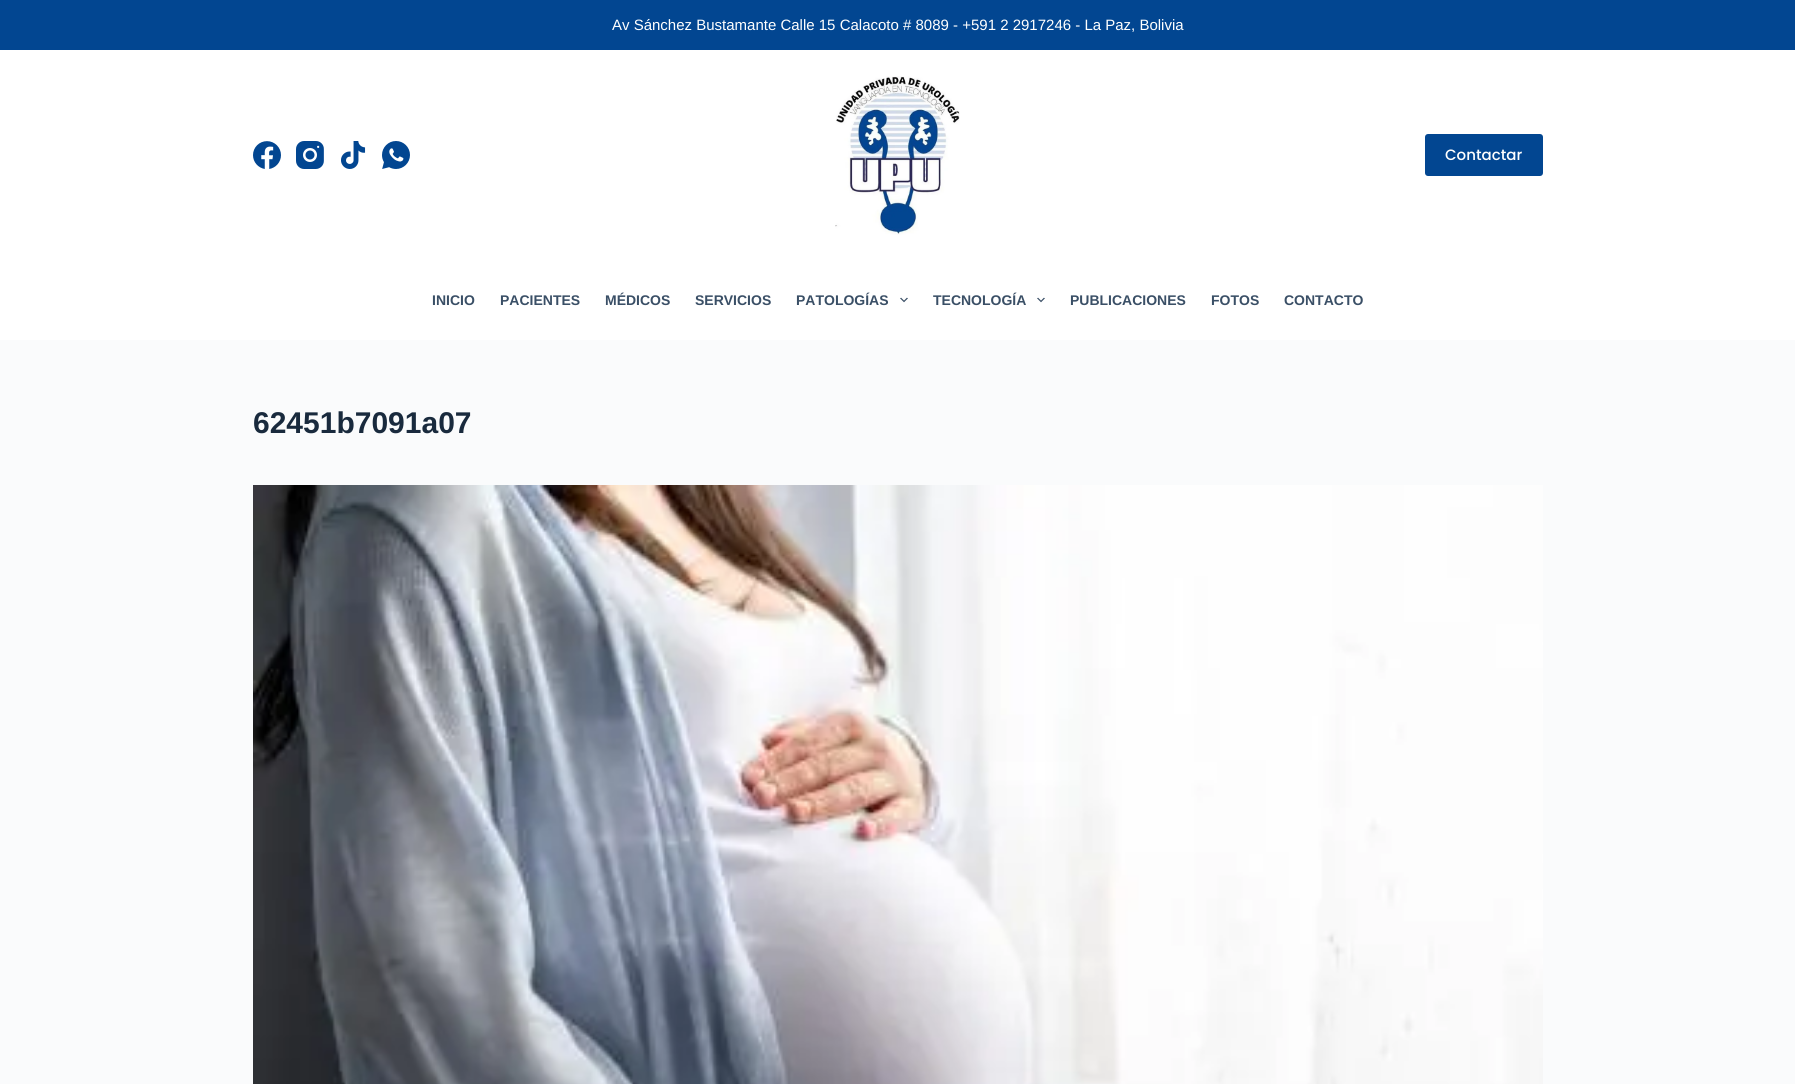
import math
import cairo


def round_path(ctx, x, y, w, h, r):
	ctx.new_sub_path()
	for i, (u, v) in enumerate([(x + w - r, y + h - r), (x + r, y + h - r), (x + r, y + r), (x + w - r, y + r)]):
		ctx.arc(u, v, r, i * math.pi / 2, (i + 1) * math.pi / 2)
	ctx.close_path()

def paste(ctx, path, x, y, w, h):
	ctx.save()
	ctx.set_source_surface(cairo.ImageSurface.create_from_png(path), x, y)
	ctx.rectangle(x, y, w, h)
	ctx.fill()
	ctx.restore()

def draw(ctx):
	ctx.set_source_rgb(0.98, 0.984, 0.988)
	ctx.paint()
	ctx.set_source_rgb(0.008, 0.275, 0.569)
	ctx.rectangle(0, 0, 1795, 50)
	ctx.fill()
	ctx.select_font_face('Liberation Sans')
	ctx.set_font_size(15)
	ctx.set_source_rgb(1, 1, 1)
	ctx.move_to(612, 30)
	ctx.show_text('Av Sánchez Bustamante Calle 15 Calacoto # 8089 - +591 2 2917246 - La Paz, Bolivia')
	ctx.rectangle(0, 50, 1795, 290)
	ctx.fill()
	paste(ctx, 'media/1.png', 253, 141, 28, 28)
	paste(ctx, 'media/2.png', 296, 141, 28, 28)
	paste(ctx, 'media/3.png', 341, 141, 25, 28)
	paste(ctx, 'media/4.png', 382, 141, 28, 28)
	paste(ctx, 'media/5.png', 835, 76, 125, 159)
	ctx.set_source_rgb(0.008, 0.275, 0.569)
	round_path(ctx, 1425, 134, 118, 42, 3)
	ctx.fill()
	ctx.select_font_face('Poppins Medium')
	ctx.set_source_rgb(1, 1, 1)
	ctx.move_to(1445, 160)
	ctx.show_text('Contactar')
	ctx.select_font_face('Liberation Sans', cairo.FONT_SLANT_NORMAL, cairo.FONT_WEIGHT_BOLD)
	ctx.set_font_size(14)
	ctx.set_source_rgb(0.227, 0.31, 0.4)
	for x, y, s in [
		(432, 305, 'INICIO'),
		(500, 305, 'PACIENTES'),
		(605, 305, 'MÉDICOS'),
		(695, 305, 'SERVICIOS'),
		(796, 305, 'PATOLOGÍAS'),
	]:
		ctx.move_to(x, y)
		ctx.show_text(s)
	paste(ctx, 'media/6.png', 900, 297, 8, 6)
	ctx.move_to(933, 305)
	ctx.show_text('TECNOLOGÍA')
	paste(ctx, 'media/6.png', 1037, 297, 8, 6)
	for x, y, s in [
		(1070, 305, 'PUBLICACIONES'),
		(1211, 305, 'FOTOS'),
		(1284, 305, 'CONTACTO'),
	]:
		ctx.move_to(x, y)
		ctx.show_text(s)
	ctx.set_font_size(30)
	ctx.set_source_rgb(0.098, 0.165, 0.239)
	ctx.move_to(253, 433)
	ctx.show_text('62451b7091a07')
	paste(ctx, 'media/7.png', 253, 485, 1290, 599)


surface = cairo.ImageSurface(cairo.FORMAT_RGB24, 1795, 1084)
ctx = cairo.Context(surface)
options = cairo.FontOptions()
options.set_hint_metrics(cairo.HINT_METRICS_OFF)
options.set_hint_style(cairo.HINT_STYLE_NONE)
ctx.set_font_options(options)
ctx.set_miter_limit(4)
draw(ctx)
surface.write_to_png('image.png')
